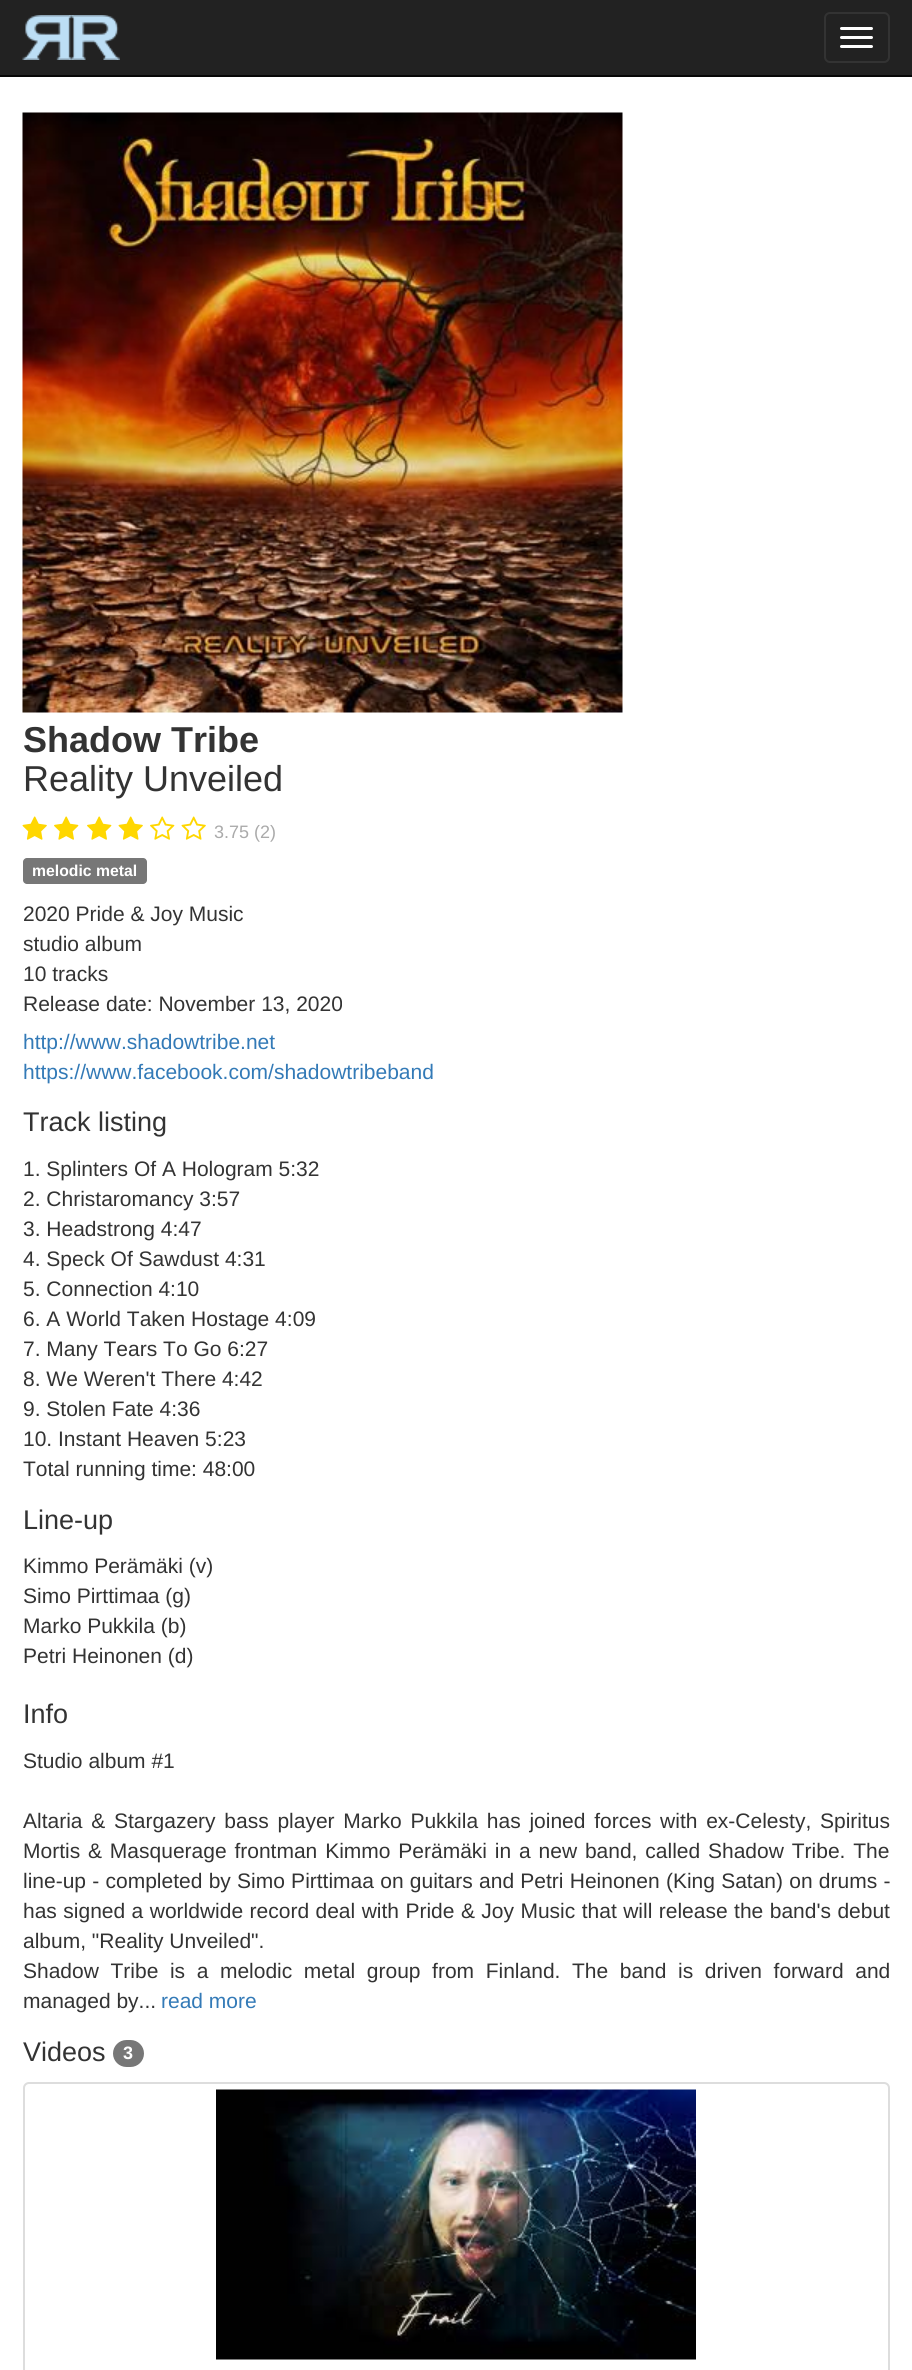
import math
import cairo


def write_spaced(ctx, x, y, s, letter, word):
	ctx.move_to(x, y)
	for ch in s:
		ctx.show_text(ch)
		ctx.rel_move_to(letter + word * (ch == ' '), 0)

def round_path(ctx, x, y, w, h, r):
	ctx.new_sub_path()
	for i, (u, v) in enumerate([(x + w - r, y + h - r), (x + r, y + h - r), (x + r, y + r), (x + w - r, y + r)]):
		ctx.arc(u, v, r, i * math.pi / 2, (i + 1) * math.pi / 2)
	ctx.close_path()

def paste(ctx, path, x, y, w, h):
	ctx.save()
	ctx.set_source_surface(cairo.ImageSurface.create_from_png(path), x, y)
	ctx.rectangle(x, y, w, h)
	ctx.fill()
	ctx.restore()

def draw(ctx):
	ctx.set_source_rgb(1, 1, 1)
	ctx.paint()
	ctx.set_source_rgb(0.133, 0.133, 0.133)
	ctx.rectangle(0, 0, 912, 75)
	ctx.fill()
	ctx.set_source_rgb(0.031, 0.031, 0.031)
	ctx.rectangle(0, 75, 912, 2)
	ctx.fill()
	paste(ctx, 'media/1.png', 22, 15, 98, 45)
	round_path(ctx, 825, 13, 64, 49, 5)
	ctx.set_source_rgb(0.2, 0.2, 0.2)
	ctx.stroke()
	ctx.set_source_rgb(1, 1, 1)
	round_path(ctx, 840, 27, 33, 3, 1.5)
	ctx.fill()
	round_path(ctx, 840, 36, 33, 3, 1.5)
	ctx.fill()
	round_path(ctx, 840, 45, 33, 3, 1.5)
	ctx.fill()
	paste(ctx, 'media/2.png', 22, 112, 601, 601)
	ctx.select_font_face('Liberation Sans', cairo.FONT_SLANT_NORMAL, cairo.FONT_WEIGHT_BOLD)
	ctx.set_font_size(36)
	ctx.set_source_rgb(0.2, 0.2, 0.2)
	ctx.move_to(23, 752)
	ctx.show_text('Shadow Tribe')
	ctx.select_font_face('Liberation Sans')
	ctx.move_to(23, 791)
	ctx.show_text('Reality Unveiled')
	paste(ctx, 'media/3.png', 22, 816, 25, 24)
	paste(ctx, 'media/4.png', 54, 816, 25, 24)
	paste(ctx, 'media/4.png', 87, 816, 25, 24)
	paste(ctx, 'media/3.png', 118, 816, 25, 24)
	paste(ctx, 'media/5.png', 150, 816, 25, 24)
	paste(ctx, 'media/6.png', 181, 816, 25, 24)
	ctx.set_font_size(18)
	ctx.set_source_rgb(0.667, 0.667, 0.667)
	ctx.move_to(214, 838)
	ctx.show_text('3.75 (2)')
	ctx.set_source_rgb(0.467, 0.467, 0.467)
	round_path(ctx, 23, 858, 124, 26, 4)
	ctx.fill()
	ctx.select_font_face('Liberation Sans', cairo.FONT_SLANT_NORMAL, cairo.FONT_WEIGHT_BOLD)
	ctx.set_font_size(15.75)
	ctx.set_source_rgb(1, 1, 1)
	ctx.move_to(32, 876)
	ctx.show_text('melodic metal')
	ctx.select_font_face('Liberation Sans')
	ctx.set_font_size(21)
	ctx.set_source_rgb(0.2, 0.2, 0.2)
	for x, y, s in [
		(23, 921, '2020 Pride & Joy Music'),
		(23, 951, 'studio album'),
		(23, 981, '10 tracks'),
		(23, 1011, 'Release date: November 13, 2020'),
	]:
		ctx.move_to(x, y)
		ctx.show_text(s)
	ctx.set_source_rgb(0.2, 0.478, 0.718)
	ctx.move_to(23, 1049)
	ctx.show_text('http://www.shadowtribe.net')
	ctx.move_to(23, 1079)
	ctx.show_text('https://www.facebook.com/shadowtribeband')
	ctx.set_font_size(27)
	ctx.set_source_rgb(0.2, 0.2, 0.2)
	ctx.move_to(23, 1131)
	ctx.show_text('Track listing')
	ctx.set_font_size(21)
	for x, y, s in [
		(23, 1176, '1. Splinters Of A Hologram 5:32'),
		(23, 1206, '2. Christaromancy 3:57'),
		(23, 1236, '3. Headstrong 4:47'),
		(23, 1266, '4. Speck Of Sawdust 4:31'),
		(23, 1296, '5. Connection 4:10'),
		(23, 1326, '6. A World Taken Hostage 4:09'),
		(23, 1356, '7. Many Tears To Go 6:27'),
		(23, 1386, '8. We Weren\'t There 4:42'),
		(23, 1416, '9. Stolen Fate 4:36'),
		(23, 1446, '10. Instant Heaven 5:23'),
		(23, 1476, 'Total running time: 48:00'),
	]:
		ctx.move_to(x, y)
		ctx.show_text(s)
	ctx.set_font_size(27)
	ctx.move_to(23, 1529)
	ctx.show_text('Line-up')
	ctx.set_font_size(21)
	for x, y, s in [
		(23, 1573, 'Kimmo Perämäki (v)'),
		(23, 1603, 'Simo Pirttimaa (g)'),
		(23, 1633, 'Marko Pukkila (b)'),
		(23, 1663, 'Petri Heinonen (d)'),
	]:
		ctx.move_to(x, y)
		ctx.show_text(s)
	ctx.set_font_size(27)
	ctx.move_to(23, 1723)
	ctx.show_text('Info')
	ctx.set_font_size(21)
	ctx.move_to(23, 1768)
	ctx.show_text('Studio album #1')
	write_spaced(ctx, 23, 1828, 'Altaria & Stargazery bass player Marko Pukkila has joined forces with ex-Celesty, Spiritus', 0, 2.9)
	write_spaced(ctx, 23, 1858, 'Mortis & Masquerage frontman Kimmo Perämäki in a new band, called Shadow Tribe. The', 0, 2)
	write_spaced(ctx, 23, 1888, 'line-up - completed by Simo Pirttimaa on guitars and Petri Heinonen (King Satan) on drums -', 0, 0.4)
	write_spaced(ctx, 23, 1918, 'has signed a worldwide record deal with Pride & Joy Music that will release the band\'s debut', 0, 0.6)
	ctx.move_to(23, 1948)
	ctx.show_text('album, "Reality Unveiled".')
	write_spaced(ctx, 23, 1978, 'Shadow Tribe is a melodic metal group from Finland. The band is driven forward and', 0, 5.75)
	ctx.move_to(23, 2008)
	ctx.show_text('managed by...')
	ctx.set_source_rgb(0.2, 0.478, 0.718)
	ctx.move_to(161, 2008)
	ctx.show_text('read more')
	ctx.set_font_size(27)
	ctx.set_source_rgb(0.2, 0.2, 0.2)
	ctx.move_to(23, 2061)
	ctx.show_text('Videos')
	ctx.set_source_rgb(0.467, 0.467, 0.467)
	round_path(ctx, 113, 2040, 31, 27, 13.5)
	ctx.fill()
	ctx.select_font_face('Liberation Sans', cairo.FONT_SLANT_NORMAL, cairo.FONT_WEIGHT_BOLD)
	ctx.set_font_size(18)
	ctx.set_source_rgb(1, 1, 1)
	ctx.move_to(123, 2059)
	ctx.show_text('3')
	round_path(ctx, 24, 2083, 865, 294, 5)
	ctx.set_source_rgb(0.867, 0.867, 0.867)
	ctx.stroke()
	paste(ctx, 'media/7.png', 216, 2089, 480, 271)


surface = cairo.ImageSurface(cairo.FORMAT_RGB24, 912, 2370)
ctx = cairo.Context(surface)
options = cairo.FontOptions()
options.set_hint_metrics(cairo.HINT_METRICS_OFF)
options.set_hint_style(cairo.HINT_STYLE_NONE)
ctx.set_font_options(options)
ctx.set_miter_limit(4)
draw(ctx)
surface.write_to_png('image.png')
